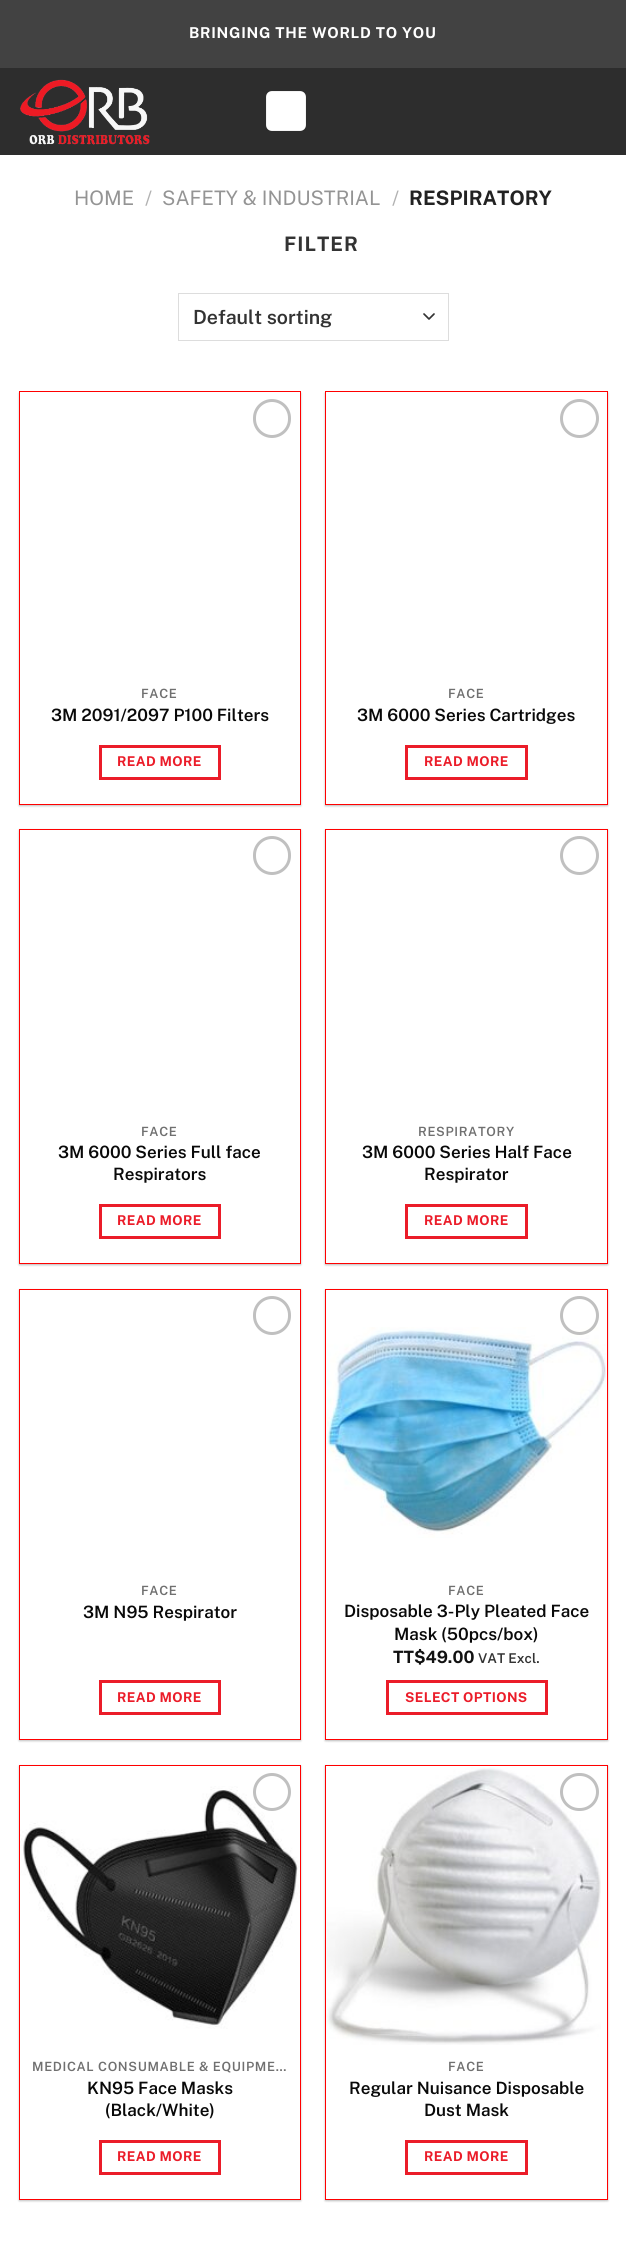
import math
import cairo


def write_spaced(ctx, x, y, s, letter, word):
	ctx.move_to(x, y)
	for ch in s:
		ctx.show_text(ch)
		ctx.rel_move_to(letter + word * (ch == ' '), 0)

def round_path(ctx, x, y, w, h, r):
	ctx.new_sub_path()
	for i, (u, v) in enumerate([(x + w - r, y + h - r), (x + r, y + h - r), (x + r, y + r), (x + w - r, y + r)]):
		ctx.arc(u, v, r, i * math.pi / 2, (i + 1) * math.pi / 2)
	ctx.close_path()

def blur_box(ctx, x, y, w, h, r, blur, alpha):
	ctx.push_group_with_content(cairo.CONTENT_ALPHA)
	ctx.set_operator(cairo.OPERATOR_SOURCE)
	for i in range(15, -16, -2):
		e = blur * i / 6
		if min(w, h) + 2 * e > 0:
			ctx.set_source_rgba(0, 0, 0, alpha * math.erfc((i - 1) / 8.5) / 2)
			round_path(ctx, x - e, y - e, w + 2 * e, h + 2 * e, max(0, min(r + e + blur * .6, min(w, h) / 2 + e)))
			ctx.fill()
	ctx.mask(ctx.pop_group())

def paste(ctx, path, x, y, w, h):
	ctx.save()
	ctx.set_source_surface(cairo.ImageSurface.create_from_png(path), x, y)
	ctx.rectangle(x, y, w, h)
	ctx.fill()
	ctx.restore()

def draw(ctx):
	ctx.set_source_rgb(1, 1, 1)
	ctx.paint()
	ctx.set_source_rgb(0.259, 0.259, 0.259)
	ctx.rectangle(0, 0, 626, 68)
	ctx.fill()
	ctx.select_font_face('Public Sans', cairo.FONT_SLANT_NORMAL, cairo.FONT_WEIGHT_BOLD)
	ctx.set_font_size(15)
	ctx.set_source_rgb(1, 1, 1)
	write_spaced(ctx, 189, 38, 'BRINGING THE WORLD TO YOU', 0.75, 0)
	ctx.set_source_rgb(0.176, 0.176, 0.176)
	ctx.rectangle(0, 68, 626, 87)
	ctx.fill()
	paste(ctx, 'media/1.png', 20, 79, 130, 66)
	ctx.set_source_rgb(1, 1, 1)
	round_path(ctx, 266, 91, 40, 40, 6)
	ctx.fill()
	ctx.rectangle(266.5, 91.5, 39, 39)
	ctx.set_source_rgba(0, 0, 0, 0.05)
	ctx.set_line_width(1)
	ctx.stroke()
	ctx.select_font_face('Public Sans')
	ctx.set_font_size(20)
	ctx.set_source_rgb(0.58, 0.58, 0.58)
	ctx.move_to(74, 205)
	ctx.show_text('HOME')
	ctx.set_source_rgb(0.698, 0.698, 0.698)
	ctx.move_to(145, 205)
	ctx.show_text('/')
	ctx.set_source_rgb(0.58, 0.58, 0.58)
	ctx.move_to(162, 205)
	ctx.show_text('SAFETY & INDUSTRIAL')
	ctx.set_source_rgb(0.698, 0.698, 0.698)
	ctx.move_to(392, 205)
	ctx.show_text('/')
	ctx.select_font_face('Public Sans', cairo.FONT_SLANT_NORMAL, cairo.FONT_WEIGHT_BOLD)
	ctx.set_source_rgb(0.133, 0.133, 0.133)
	ctx.move_to(409, 205)
	ctx.show_text('RESPIRATORY')
	ctx.set_source_rgb(0.2, 0.2, 0.2)
	write_spaced(ctx, 284, 251, 'FILTER', 1, 0)
	ctx.new_path()
	ctx.move_to(424, 314)
	ctx.line_to(429, 319)
	ctx.line_to(434, 314)
	ctx.set_line_width(1.7)
	ctx.set_line_cap(cairo.LINE_CAP_ROUND)
	ctx.set_line_join(cairo.LINE_JOIN_ROUND)
	ctx.stroke()
	ctx.rectangle(178.5, 293.5, 270, 47)
	ctx.set_source_rgb(0.867, 0.867, 0.867)
	ctx.set_line_width(1)
	ctx.set_line_cap(cairo.LINE_CAP_BUTT)
	ctx.set_line_join(cairo.LINE_JOIN_MITER)
	ctx.stroke()
	ctx.select_font_face('Public Sans SemiBold')
	ctx.set_font_size(19.5)
	ctx.set_source_rgb(0.2, 0.2, 0.2)
	ctx.move_to(193, 324)
	ctx.show_text('Default sorting')
	ctx.save()
	ctx.set_fill_rule(cairo.FILL_RULE_EVEN_ODD)
	ctx.new_path()
	ctx.move_to(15, 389)
	ctx.line_to(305, 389)
	ctx.line_to(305, 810)
	ctx.line_to(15, 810)
	ctx.close_path()
	ctx.move_to(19, 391)
	ctx.line_to(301, 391)
	ctx.line_to(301, 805)
	ctx.line_to(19, 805)
	ctx.close_path()
	ctx.clip()
	ctx.set_source_rgb(0, 0, 0)
	blur_box(ctx, 19, 393, 282, 413, 0, 1, 0.24)
	ctx.restore()
	ctx.rectangle(19.5, 391.5, 281, 413)
	ctx.set_source_rgb(1, 0, 0)
	ctx.stroke()
	round_path(ctx, 254.5, 400.5, 35, 36, 17.5)
	ctx.set_source_rgb(0.753, 0.753, 0.753)
	ctx.set_line_width(3)
	ctx.stroke()
	ctx.set_font_size(12.75)
	ctx.set_source_rgb(0.439, 0.439, 0.439)
	write_spaced(ctx, 141, 698, 'FACE', 0.65, 0)
	ctx.set_font_size(17)
	ctx.set_source_rgb(0.039, 0.039, 0.039)
	ctx.move_to(51, 721)
	ctx.show_text('3M 2091/2097 P100 Filters')
	ctx.rectangle(100.5, 746.5, 119, 32)
	ctx.set_source_rgb(0.918, 0.11, 0.161)
	ctx.stroke()
	ctx.select_font_face('Public Sans', cairo.FONT_SLANT_NORMAL, cairo.FONT_WEIGHT_BOLD)
	ctx.set_font_size(13.5)
	write_spaced(ctx, 117, 766, 'READ MORE', 0.4, 0)
	ctx.set_source_rgb(0, 0, 0)
	blur_box(ctx, 325, 393, 283, 413, 0, 1, 0.24)
	blur_box(ctx, 328, 395, 277, 409, 0, 2, 0.12)
	ctx.set_source_rgb(1, 1, 1)
	ctx.rectangle(325.5, 391.5, 282, 413)
	ctx.fill_preserve()
	ctx.set_source_rgb(1, 0, 0)
	ctx.set_line_width(1)
	ctx.stroke()
	ctx.arc(579.5, 418.5, 18, 0, 2 * math.pi)
	ctx.set_source_rgb(0.753, 0.753, 0.753)
	ctx.set_line_width(3)
	ctx.stroke()
	ctx.select_font_face('Public Sans SemiBold')
	ctx.set_font_size(12.75)
	ctx.set_source_rgb(0.439, 0.439, 0.439)
	write_spaced(ctx, 448, 698, 'FACE', 0.65, 0)
	ctx.set_font_size(17)
	ctx.set_source_rgb(0.039, 0.039, 0.039)
	ctx.move_to(357, 721)
	ctx.show_text('3M 6000 Series Cartridges')
	ctx.rectangle(406.5, 746.5, 120, 32)
	ctx.set_source_rgb(0.918, 0.11, 0.161)
	ctx.stroke()
	ctx.select_font_face('Public Sans', cairo.FONT_SLANT_NORMAL, cairo.FONT_WEIGHT_BOLD)
	ctx.set_font_size(13.5)
	write_spaced(ctx, 424, 766, 'READ MORE', 0.4, 0)
	ctx.set_source_rgb(0, 0, 0)
	blur_box(ctx, 19, 830, 282, 435, 0, 1, 0.24)
	blur_box(ctx, 21, 833, 278, 430, 0, 2, 0.12)
	ctx.set_source_rgb(1, 1, 1)
	ctx.rectangle(19.5, 829.5, 281, 434)
	ctx.fill_preserve()
	ctx.set_source_rgb(1, 0, 0)
	ctx.set_line_width(1)
	ctx.stroke()
	round_path(ctx, 254.5, 837.5, 35, 36, 17.5)
	ctx.set_source_rgb(0.753, 0.753, 0.753)
	ctx.set_line_width(3)
	ctx.stroke()
	ctx.select_font_face('Public Sans SemiBold')
	ctx.set_font_size(12.75)
	ctx.set_source_rgb(0.439, 0.439, 0.439)
	write_spaced(ctx, 141, 1136, 'FACE', 0.65, 0)
	ctx.set_font_size(17)
	ctx.set_source_rgb(0.039, 0.039, 0.039)
	ctx.move_to(58, 1158)
	ctx.show_text('3M 6000 Series Full face')
	ctx.move_to(113, 1180)
	ctx.show_text('Respirators')
	ctx.rectangle(100.5, 1205.5, 119, 32)
	ctx.set_source_rgb(0.918, 0.11, 0.161)
	ctx.stroke()
	ctx.select_font_face('Public Sans', cairo.FONT_SLANT_NORMAL, cairo.FONT_WEIGHT_BOLD)
	ctx.set_font_size(13.5)
	write_spaced(ctx, 117, 1225, 'READ MORE', 0.4, 0)
	ctx.set_source_rgb(0, 0, 0)
	blur_box(ctx, 325, 830, 283, 435, 0, 1, 0.24)
	blur_box(ctx, 328, 833, 277, 430, 0, 2, 0.12)
	ctx.set_source_rgb(1, 1, 1)
	ctx.rectangle(325.5, 829.5, 282, 434)
	ctx.fill_preserve()
	ctx.set_source_rgb(1, 0, 0)
	ctx.set_line_width(1)
	ctx.stroke()
	ctx.arc(579.5, 855.5, 18, 0, 2 * math.pi)
	ctx.set_source_rgb(0.753, 0.753, 0.753)
	ctx.set_line_width(3)
	ctx.stroke()
	ctx.select_font_face('Public Sans SemiBold')
	ctx.set_font_size(12.75)
	ctx.set_source_rgb(0.439, 0.439, 0.439)
	write_spaced(ctx, 418, 1136, 'RESPIRATORY', 0.65, 0)
	ctx.set_font_size(17)
	ctx.set_source_rgb(0.039, 0.039, 0.039)
	ctx.move_to(362, 1158)
	ctx.show_text('3M 6000 Series Half Face')
	ctx.move_to(424, 1180)
	ctx.show_text('Respirator')
	ctx.rectangle(406.5, 1205.5, 120, 32)
	ctx.set_source_rgb(0.918, 0.11, 0.161)
	ctx.stroke()
	ctx.select_font_face('Public Sans', cairo.FONT_SLANT_NORMAL, cairo.FONT_WEIGHT_BOLD)
	ctx.set_font_size(13.5)
	write_spaced(ctx, 424, 1225, 'READ MORE', 0.4, 0)
	ctx.save()
	ctx.set_fill_rule(cairo.FILL_RULE_EVEN_ODD)
	ctx.new_path()
	ctx.move_to(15, 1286)
	ctx.line_to(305, 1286)
	ctx.line_to(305, 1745)
	ctx.line_to(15, 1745)
	ctx.close_path()
	ctx.move_to(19, 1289)
	ctx.line_to(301, 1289)
	ctx.line_to(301, 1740)
	ctx.line_to(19, 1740)
	ctx.close_path()
	ctx.clip()
	ctx.set_source_rgb(0, 0, 0)
	blur_box(ctx, 19, 1290, 282, 451, 0, 1, 0.24)
	ctx.restore()
	ctx.rectangle(19.5, 1289.5, 281, 450)
	ctx.set_source_rgb(1, 0, 0)
	ctx.set_line_width(1)
	ctx.stroke()
	round_path(ctx, 254.5, 1297.5, 35, 36, 17.5)
	ctx.set_source_rgb(0.753, 0.753, 0.753)
	ctx.set_line_width(3)
	ctx.stroke()
	ctx.select_font_face('Public Sans SemiBold')
	ctx.set_font_size(12.75)
	ctx.set_source_rgb(0.439, 0.439, 0.439)
	write_spaced(ctx, 141, 1595, 'FACE', 0.65, 0)
	ctx.set_font_size(17)
	ctx.set_source_rgb(0.039, 0.039, 0.039)
	ctx.move_to(83, 1618)
	ctx.show_text('3M N95 Respirator')
	ctx.rectangle(100.5, 1681.5, 119, 32)
	ctx.set_source_rgb(0.918, 0.11, 0.161)
	ctx.stroke()
	ctx.select_font_face('Public Sans', cairo.FONT_SLANT_NORMAL, cairo.FONT_WEIGHT_BOLD)
	ctx.set_font_size(13.5)
	write_spaced(ctx, 117, 1702, 'READ MORE', 0.4, 0)
	ctx.set_source_rgb(0, 0, 0)
	blur_box(ctx, 325, 1290, 283, 451, 0, 1, 0.24)
	blur_box(ctx, 328, 1293, 277, 446, 0, 2, 0.12)
	ctx.set_source_rgb(1, 1, 1)
	ctx.rectangle(325.5, 1289.5, 282, 450)
	ctx.fill_preserve()
	ctx.set_source_rgb(1, 0, 0)
	ctx.set_line_width(1)
	ctx.stroke()
	paste(ctx, 'media/2.png', 326, 1327, 280, 211)
	ctx.arc(579.5, 1315.5, 18, 0, 2 * math.pi)
	ctx.set_source_rgb(0.753, 0.753, 0.753)
	ctx.set_line_width(3)
	ctx.stroke()
	ctx.select_font_face('Public Sans SemiBold')
	ctx.set_font_size(12.75)
	ctx.set_source_rgb(0.439, 0.439, 0.439)
	write_spaced(ctx, 448, 1595, 'FACE', 0.65, 0)
	ctx.set_font_size(17)
	ctx.set_source_rgb(0.039, 0.039, 0.039)
	ctx.move_to(344, 1617)
	ctx.show_text('Disposable 3-Ply Pleated Face')
	ctx.move_to(394, 1640)
	ctx.show_text('Mask (50pcs/box)')
	ctx.select_font_face('Public Sans', cairo.FONT_SLANT_NORMAL, cairo.FONT_WEIGHT_BOLD)
	ctx.set_source_rgb(0.067, 0.067, 0.067)
	ctx.move_to(393, 1663)
	ctx.show_text('TT$49.00')
	ctx.select_font_face('Public Sans SemiBold')
	ctx.set_font_size(13.5)
	ctx.set_source_rgb(0.2, 0.2, 0.2)
	ctx.move_to(478, 1663)
	ctx.show_text('VAT Excl.')
	ctx.rectangle(387.5, 1681.5, 159, 32)
	ctx.set_source_rgb(0.918, 0.11, 0.161)
	ctx.stroke()
	ctx.select_font_face('Public Sans', cairo.FONT_SLANT_NORMAL, cairo.FONT_WEIGHT_BOLD)
	write_spaced(ctx, 405, 1702, 'SELECT OPTIONS', 0.4, 0)
	ctx.save()
	ctx.set_fill_rule(cairo.FILL_RULE_EVEN_ODD)
	ctx.new_path()
	ctx.move_to(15, 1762)
	ctx.line_to(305, 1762)
	ctx.line_to(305, 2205)
	ctx.line_to(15, 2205)
	ctx.close_path()
	ctx.move_to(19, 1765)
	ctx.line_to(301, 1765)
	ctx.line_to(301, 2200)
	ctx.line_to(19, 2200)
	ctx.close_path()
	ctx.clip()
	ctx.set_source_rgb(0, 0, 0)
	blur_box(ctx, 19, 1766, 282, 435, 0, 1, 0.24)
	ctx.restore()
	ctx.rectangle(19.5, 1765.5, 281, 434)
	ctx.set_source_rgb(1, 0, 0)
	ctx.set_line_width(1)
	ctx.stroke()
	paste(ctx, 'media/3.png', 20, 1786, 280, 243)
	ctx.arc(272, 1792, 17.5, 0, 2 * math.pi)
	ctx.set_source_rgb(0.753, 0.753, 0.753)
	ctx.set_line_width(3)
	ctx.stroke()
	ctx.select_font_face('Public Sans SemiBold')
	ctx.set_font_size(12.75)
	ctx.set_source_rgb(0.439, 0.439, 0.439)
	write_spaced(ctx, 32, 2071, 'MEDICAL CONSUMABLE & EQUIPME…', 0.65, 0)
	ctx.set_font_size(17)
	ctx.set_source_rgb(0.039, 0.039, 0.039)
	ctx.move_to(87, 2094)
	ctx.show_text('KN95 Face Masks')
	ctx.move_to(105, 2116)
	ctx.show_text('(Black/White)')
	ctx.rectangle(100.5, 2141.5, 119, 32)
	ctx.set_source_rgb(0.918, 0.11, 0.161)
	ctx.stroke()
	ctx.select_font_face('Public Sans', cairo.FONT_SLANT_NORMAL, cairo.FONT_WEIGHT_BOLD)
	ctx.set_font_size(13.5)
	write_spaced(ctx, 117, 2161, 'READ MORE', 0.4, 0)
	ctx.set_source_rgb(0, 0, 0)
	blur_box(ctx, 325, 1766, 283, 435, 0, 1, 0.24)
	blur_box(ctx, 328, 1769, 277, 430, 0, 2, 0.12)
	ctx.set_source_rgb(1, 1, 1)
	ctx.rectangle(325.5, 1765.5, 282, 434)
	ctx.fill_preserve()
	ctx.set_source_rgb(1, 0, 0)
	ctx.set_line_width(1)
	ctx.stroke()
	paste(ctx, 'media/4.png', 326, 1767, 275, 278)
	round_path(ctx, 561.5, 1774.5, 36, 35, 17.5)
	ctx.set_source_rgb(0.753, 0.753, 0.753)
	ctx.set_line_width(3)
	ctx.stroke()
	ctx.select_font_face('Public Sans SemiBold')
	ctx.set_font_size(12.75)
	ctx.set_source_rgb(0.439, 0.439, 0.439)
	write_spaced(ctx, 448, 2071, 'FACE', 0.65, 0)
	ctx.set_font_size(17)
	ctx.set_source_rgb(0.039, 0.039, 0.039)
	ctx.move_to(349, 2094)
	ctx.show_text('Regular Nuisance Disposable')
	ctx.move_to(424, 2116)
	ctx.show_text('Dust Mask')
	ctx.rectangle(406.5, 2141.5, 120, 32)
	ctx.set_source_rgb(0.918, 0.11, 0.161)
	ctx.stroke()
	ctx.select_font_face('Public Sans', cairo.FONT_SLANT_NORMAL, cairo.FONT_WEIGHT_BOLD)
	ctx.set_font_size(13.5)
	write_spaced(ctx, 424, 2161, 'READ MORE', 0.4, 0)


surface = cairo.ImageSurface(cairo.FORMAT_RGB24, 626, 2253)
ctx = cairo.Context(surface)
options = cairo.FontOptions()
options.set_hint_metrics(cairo.HINT_METRICS_OFF)
options.set_hint_style(cairo.HINT_STYLE_NONE)
ctx.set_font_options(options)
ctx.set_miter_limit(4)
draw(ctx)
surface.write_to_png('image.png')
